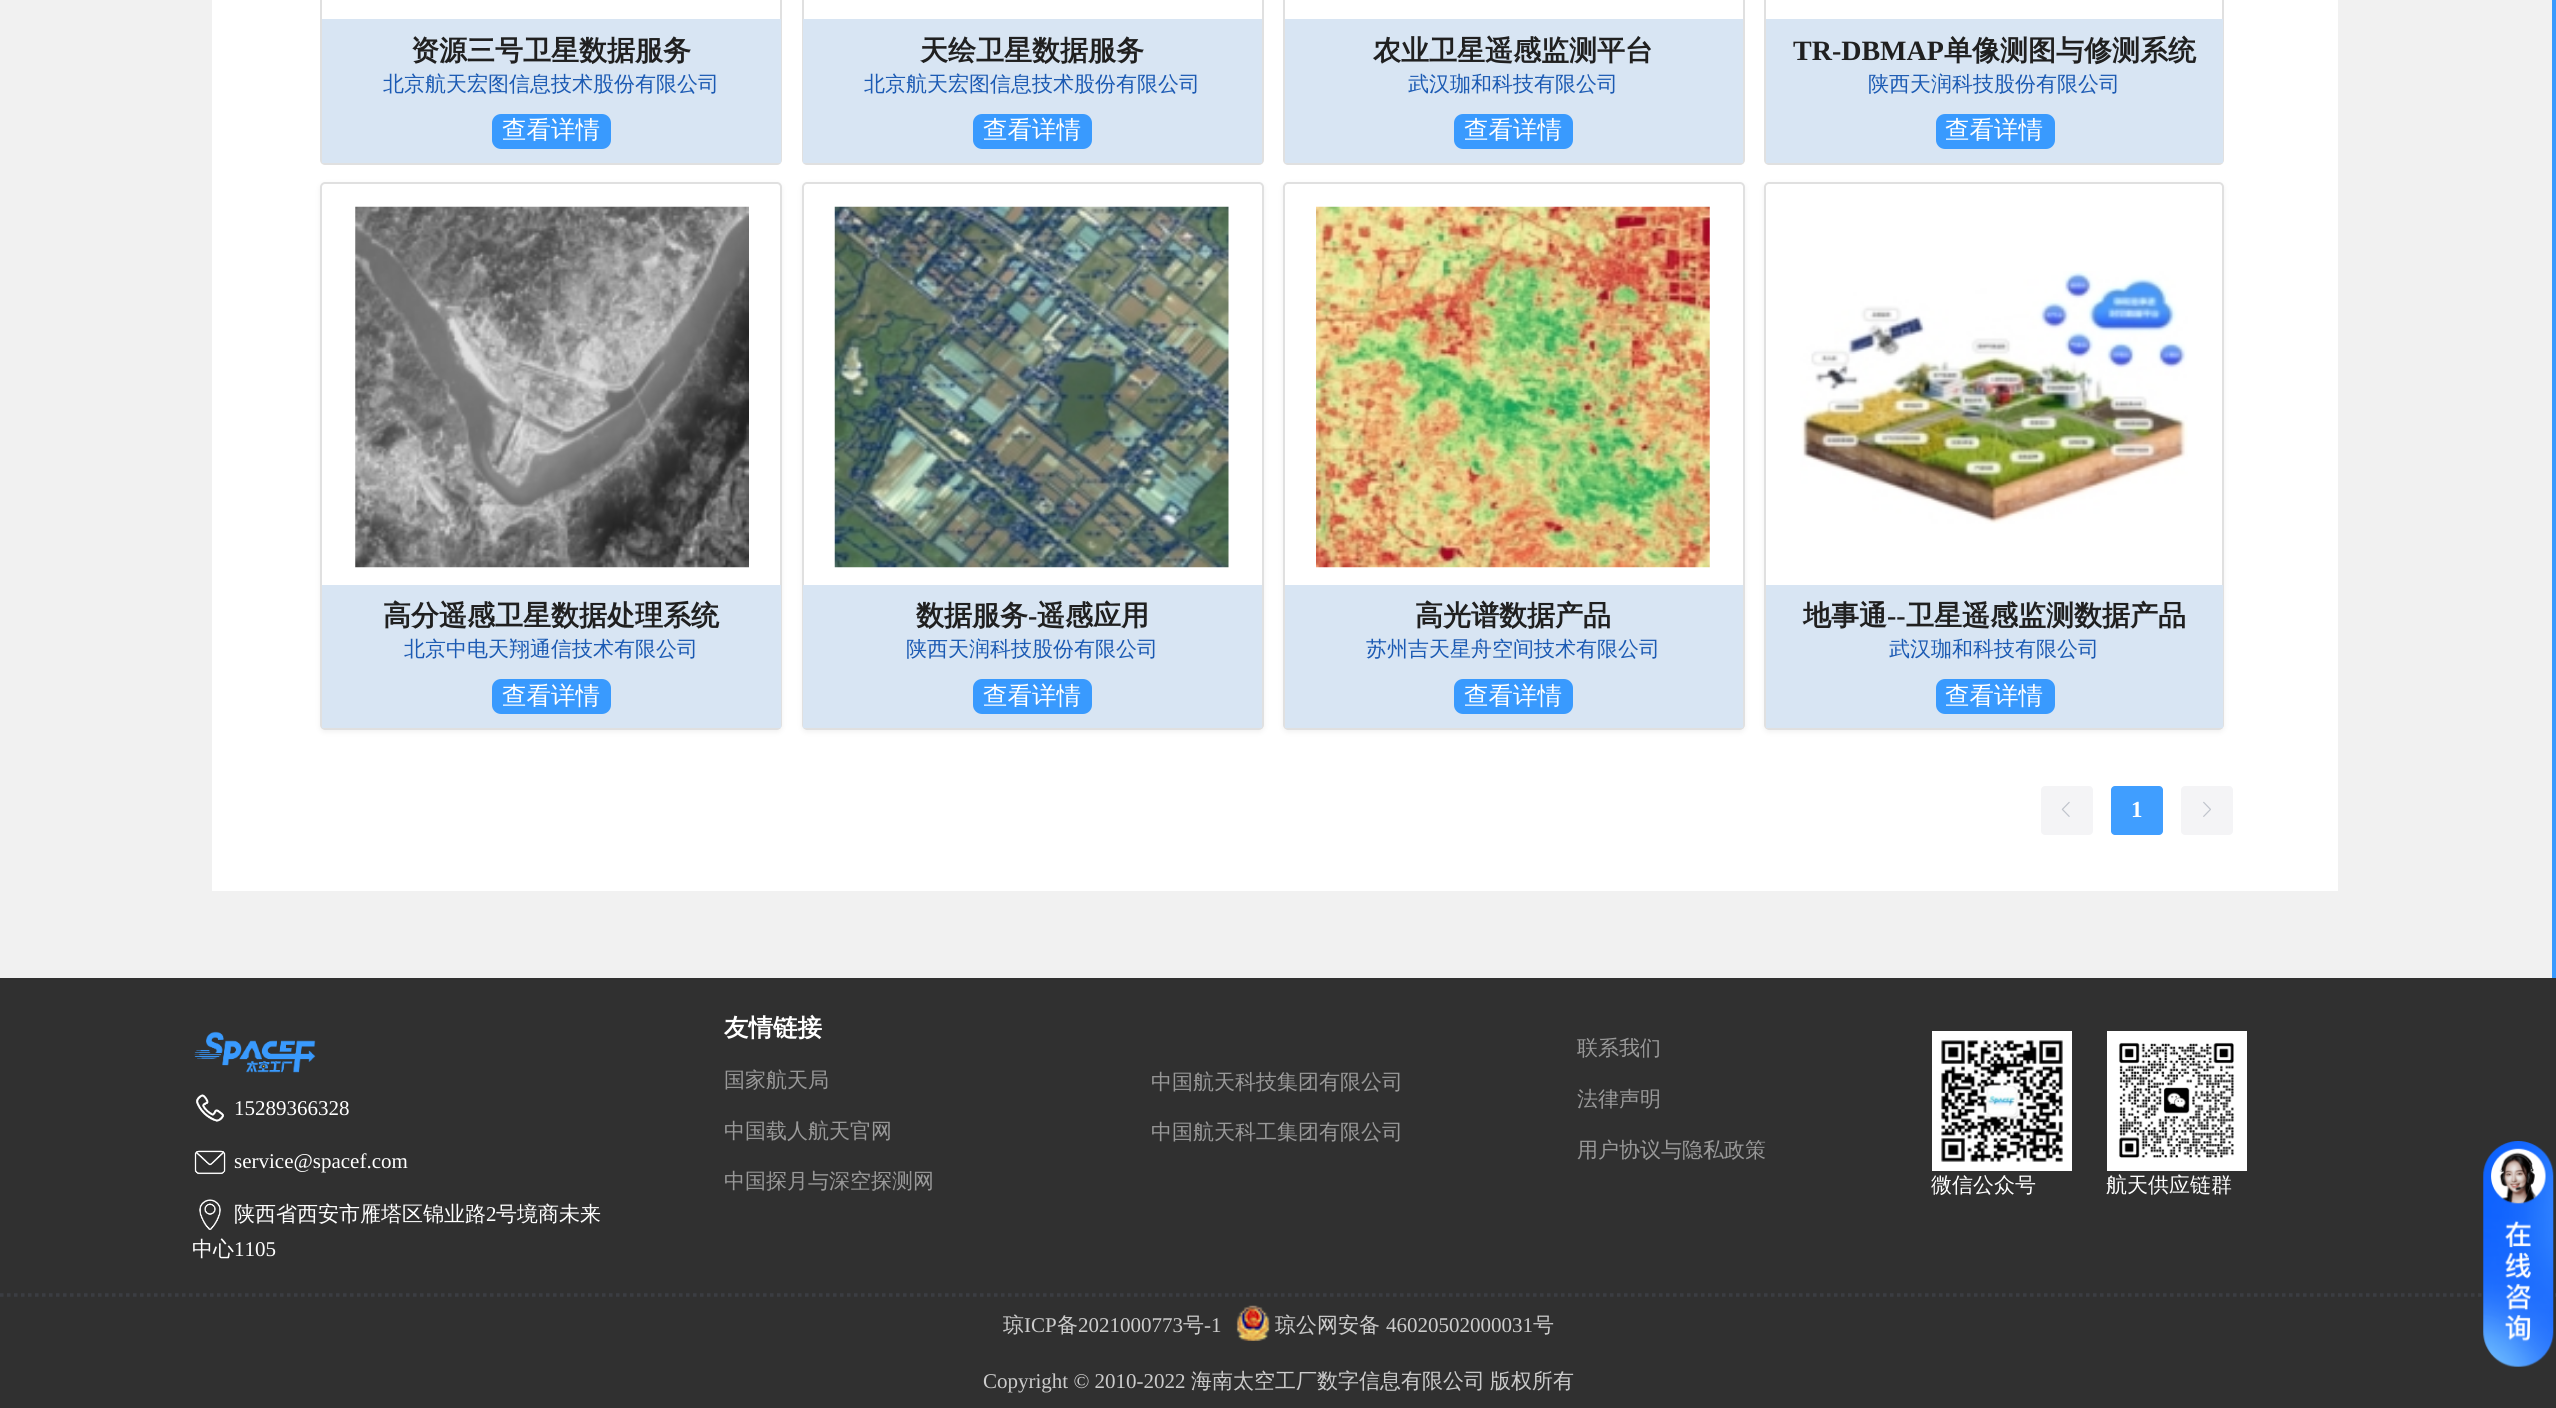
import math
import cairo


def round_path(ctx, x, y, w, h, r):
	ctx.new_sub_path()
	for i, (u, v) in enumerate([(x + w - r, y + h - r), (x + r, y + h - r), (x + r, y + r), (x + w - r, y + r)]):
		ctx.arc(u, v, r, i * math.pi / 2, (i + 1) * math.pi / 2)
	ctx.close_path()

def blur_box(ctx, x, y, w, h, r, blur, alpha):
	ctx.push_group_with_content(cairo.CONTENT_ALPHA)
	ctx.set_operator(cairo.OPERATOR_SOURCE)
	for i in range(15, -16, -2):
		e = blur * i / 6
		if min(w, h) + 2 * e > 0:
			ctx.set_source_rgba(0, 0, 0, alpha * math.erfc((i - 1) / 8.5) / 2)
			round_path(ctx, x - e, y - e, w + 2 * e, h + 2 * e, max(0, min(r + e + blur * .6, min(w, h) / 2 + e)))
			ctx.fill()
	ctx.mask(ctx.pop_group())

def paste(ctx, path, x, y, w, h):
	ctx.save()
	ctx.set_source_surface(cairo.ImageSurface.create_from_png(path), x, y)
	ctx.rectangle(x, y, w, h)
	ctx.fill()
	ctx.restore()

def draw(ctx):
	ctx.set_source_rgb(0.945, 0.945, 0.945)
	ctx.paint()
	ctx.set_source_rgb(0.224, 0.604, 0.996)
	ctx.rectangle(2552, 0, 4, 978)
	ctx.fill()
	ctx.set_source_rgb(1, 1, 1)
	ctx.rectangle(212, 0, 2126, 891)
	ctx.fill()
	round_path(ctx, 321, -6, 460, 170, 4)
	ctx.set_source_rgb(0.878, 0.878, 0.878)
	ctx.stroke()
	ctx.set_source_rgb(0.847, 0.898, 0.953)
	ctx.rectangle(322, 19, 459, 144)
	ctx.fill()
	ctx.select_font_face('WenQuanYi Zen Hei', cairo.FONT_SLANT_NORMAL, cairo.FONT_WEIGHT_BOLD)
	ctx.set_font_size(28)
	ctx.set_source_rgb(0.125, 0.125, 0.125)
	ctx.move_to(411, 60)
	ctx.show_text('资源三号卫星数据服务')
	ctx.select_font_face('WenQuanYi Zen Hei Medium')
	ctx.set_font_size(21)
	ctx.set_source_rgb(0.106, 0.353, 0.702)
	ctx.move_to(383, 91)
	ctx.show_text('北京航天宏图信息技术股份有限公司')
	ctx.set_source_rgb(0.224, 0.604, 0.996)
	round_path(ctx, 492, 114, 119, 35, 9)
	ctx.fill()
	ctx.set_font_size(24.5)
	ctx.set_source_rgb(1, 1, 1)
	ctx.move_to(502, 138)
	ctx.show_text('查看详情')
	round_path(ctx, 803, -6, 460, 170, 4)
	ctx.set_source_rgb(0.878, 0.878, 0.878)
	ctx.stroke()
	ctx.set_source_rgb(0.847, 0.898, 0.953)
	ctx.rectangle(803, 19, 459, 144)
	ctx.fill()
	ctx.select_font_face('WenQuanYi Zen Hei', cairo.FONT_SLANT_NORMAL, cairo.FONT_WEIGHT_BOLD)
	ctx.set_font_size(28)
	ctx.set_source_rgb(0.125, 0.125, 0.125)
	ctx.move_to(920, 60)
	ctx.show_text('天绘卫星数据服务')
	ctx.select_font_face('WenQuanYi Zen Hei Medium')
	ctx.set_font_size(21)
	ctx.set_source_rgb(0.106, 0.353, 0.702)
	ctx.move_to(864, 91)
	ctx.show_text('北京航天宏图信息技术股份有限公司')
	ctx.set_source_rgb(0.224, 0.604, 0.996)
	round_path(ctx, 973, 114, 119, 35, 9)
	ctx.fill()
	ctx.set_font_size(24.5)
	ctx.set_source_rgb(1, 1, 1)
	ctx.move_to(983, 138)
	ctx.show_text('查看详情')
	round_path(ctx, 1284, -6, 460, 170, 4)
	ctx.set_source_rgb(0.878, 0.878, 0.878)
	ctx.stroke()
	ctx.set_source_rgb(0.847, 0.898, 0.953)
	ctx.rectangle(1285, 19, 458, 144)
	ctx.fill()
	ctx.select_font_face('WenQuanYi Zen Hei', cairo.FONT_SLANT_NORMAL, cairo.FONT_WEIGHT_BOLD)
	ctx.set_font_size(28)
	ctx.set_source_rgb(0.125, 0.125, 0.125)
	ctx.move_to(1373, 60)
	ctx.show_text('农业卫星遥感监测平台')
	ctx.select_font_face('WenQuanYi Zen Hei Medium')
	ctx.set_font_size(21)
	ctx.set_source_rgb(0.106, 0.353, 0.702)
	ctx.move_to(1408, 91)
	ctx.show_text('武汉珈和科技有限公司')
	ctx.set_source_rgb(0.224, 0.604, 0.996)
	round_path(ctx, 1454, 114, 119, 35, 9)
	ctx.fill()
	ctx.set_font_size(24.5)
	ctx.set_source_rgb(1, 1, 1)
	ctx.move_to(1464, 138)
	ctx.show_text('查看详情')
	round_path(ctx, 1765, -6, 458, 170, 4)
	ctx.set_source_rgb(0.878, 0.878, 0.878)
	ctx.stroke()
	ctx.set_source_rgb(0.847, 0.898, 0.953)
	ctx.rectangle(1766, 19, 457, 144)
	ctx.fill()
	ctx.select_font_face('Liberation Serif', cairo.FONT_SLANT_NORMAL, cairo.FONT_WEIGHT_BOLD)
	ctx.set_font_size(28)
	ctx.set_source_rgb(0.125, 0.125, 0.125)
	ctx.move_to(1793, 60)
	ctx.show_text('TR-DBMAP')
	ctx.select_font_face('WenQuanYi Zen Hei', cairo.FONT_SLANT_NORMAL, cairo.FONT_WEIGHT_BOLD)
	ctx.move_to(1944, 60)
	ctx.show_text('单像测图与修测系统')
	ctx.select_font_face('WenQuanYi Zen Hei Medium')
	ctx.set_font_size(21)
	ctx.set_source_rgb(0.106, 0.353, 0.702)
	ctx.move_to(1868, 91)
	ctx.show_text('陕西天润科技股份有限公司')
	ctx.set_source_rgb(0.224, 0.604, 0.996)
	round_path(ctx, 1936, 114, 119, 35, 9)
	ctx.fill()
	ctx.set_font_size(24.5)
	ctx.set_source_rgb(1, 1, 1)
	ctx.move_to(1945, 138)
	ctx.show_text('查看详情')
	ctx.save()
	ctx.set_fill_rule(cairo.FILL_RULE_EVEN_ODD)
	ctx.new_path()
	ctx.move_to(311, 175)
	ctx.line_to(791, 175)
	ctx.line_to(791, 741)
	ctx.line_to(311, 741)
	ctx.close_path()
	ctx.move_to(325, 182)
	ctx.line_to(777, 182)
	ctx.curve_to(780, 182, 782, 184, 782, 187)
	ctx.line_to(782, 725)
	ctx.curve_to(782, 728, 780, 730, 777, 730)
	ctx.line_to(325, 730)
	ctx.curve_to(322, 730, 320, 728, 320, 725)
	ctx.line_to(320, 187)
	ctx.curve_to(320, 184, 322, 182, 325, 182)
	ctx.close_path()
	ctx.clip()
	ctx.set_source_rgb(0.918, 0.918, 0.918)
	blur_box(ctx, 320, 184, 462, 548, 5, 2.5, 0.7)
	ctx.restore()
	round_path(ctx, 321, 183, 460, 546, 4)
	ctx.set_source_rgb(0.878, 0.878, 0.878)
	ctx.stroke()
	paste(ctx, 'media/1.png', 355, 206, 394, 362)
	ctx.set_source_rgb(0.847, 0.898, 0.953)
	ctx.rectangle(322, 585, 459, 143)
	ctx.fill()
	ctx.select_font_face('WenQuanYi Zen Hei', cairo.FONT_SLANT_NORMAL, cairo.FONT_WEIGHT_BOLD)
	ctx.set_font_size(28)
	ctx.set_source_rgb(0.125, 0.125, 0.125)
	ctx.move_to(383, 625)
	ctx.show_text('高分遥感卫星数据处理系统')
	ctx.select_font_face('WenQuanYi Zen Hei Medium')
	ctx.set_font_size(21)
	ctx.set_source_rgb(0.106, 0.353, 0.702)
	ctx.move_to(404, 656)
	ctx.show_text('北京中电天翔通信技术有限公司')
	ctx.set_source_rgb(0.224, 0.604, 0.996)
	round_path(ctx, 492, 679, 119, 35, 9)
	ctx.fill()
	ctx.set_font_size(24.5)
	ctx.set_source_rgb(1, 1, 1)
	ctx.move_to(502, 704)
	ctx.show_text('查看详情')
	ctx.save()
	ctx.set_fill_rule(cairo.FILL_RULE_EVEN_ODD)
	ctx.new_path()
	ctx.move_to(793, 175)
	ctx.line_to(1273, 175)
	ctx.line_to(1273, 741)
	ctx.line_to(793, 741)
	ctx.close_path()
	ctx.move_to(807, 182)
	ctx.line_to(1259, 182)
	ctx.curve_to(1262, 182, 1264, 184, 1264, 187)
	ctx.line_to(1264, 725)
	ctx.curve_to(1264, 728, 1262, 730, 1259, 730)
	ctx.line_to(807, 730)
	ctx.curve_to(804, 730, 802, 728, 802, 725)
	ctx.line_to(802, 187)
	ctx.curve_to(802, 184, 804, 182, 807, 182)
	ctx.close_path()
	ctx.clip()
	ctx.set_source_rgb(0.918, 0.918, 0.918)
	blur_box(ctx, 802, 184, 462, 548, 5, 2.5, 0.7)
	ctx.restore()
	round_path(ctx, 803, 183, 460, 546, 4)
	ctx.set_source_rgb(0.878, 0.878, 0.878)
	ctx.stroke()
	paste(ctx, 'media/2.png', 834, 206, 395, 362)
	ctx.set_source_rgb(0.847, 0.898, 0.953)
	ctx.rectangle(803, 585, 459, 143)
	ctx.fill()
	ctx.select_font_face('WenQuanYi Zen Hei', cairo.FONT_SLANT_NORMAL, cairo.FONT_WEIGHT_BOLD)
	ctx.set_font_size(28)
	ctx.set_source_rgb(0.125, 0.125, 0.125)
	ctx.move_to(916, 625)
	ctx.show_text('数据服务')
	ctx.select_font_face('Liberation Serif', cairo.FONT_SLANT_NORMAL, cairo.FONT_WEIGHT_BOLD)
	ctx.move_to(1028, 625)
	ctx.show_text('-')
	ctx.select_font_face('WenQuanYi Zen Hei', cairo.FONT_SLANT_NORMAL, cairo.FONT_WEIGHT_BOLD)
	ctx.move_to(1037, 625)
	ctx.show_text('遥感应用')
	ctx.select_font_face('WenQuanYi Zen Hei Medium')
	ctx.set_font_size(21)
	ctx.set_source_rgb(0.106, 0.353, 0.702)
	ctx.move_to(906, 656)
	ctx.show_text('陕西天润科技股份有限公司')
	ctx.set_source_rgb(0.224, 0.604, 0.996)
	round_path(ctx, 973, 679, 119, 35, 9)
	ctx.fill()
	ctx.set_font_size(24.5)
	ctx.set_source_rgb(1, 1, 1)
	ctx.move_to(983, 704)
	ctx.show_text('查看详情')
	ctx.save()
	ctx.set_fill_rule(cairo.FILL_RULE_EVEN_ODD)
	ctx.new_path()
	ctx.move_to(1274, 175)
	ctx.line_to(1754, 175)
	ctx.line_to(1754, 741)
	ctx.line_to(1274, 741)
	ctx.close_path()
	ctx.move_to(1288, 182)
	ctx.line_to(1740, 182)
	ctx.curve_to(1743, 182, 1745, 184, 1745, 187)
	ctx.line_to(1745, 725)
	ctx.curve_to(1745, 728, 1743, 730, 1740, 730)
	ctx.line_to(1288, 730)
	ctx.curve_to(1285, 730, 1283, 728, 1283, 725)
	ctx.line_to(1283, 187)
	ctx.curve_to(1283, 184, 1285, 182, 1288, 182)
	ctx.close_path()
	ctx.clip()
	ctx.set_source_rgb(0.918, 0.918, 0.918)
	blur_box(ctx, 1283, 184, 462, 548, 5, 2.5, 0.7)
	ctx.restore()
	round_path(ctx, 1284, 183, 460, 546, 4)
	ctx.set_source_rgb(0.878, 0.878, 0.878)
	ctx.stroke()
	paste(ctx, 'media/3.png', 1316, 206, 394, 362)
	ctx.set_source_rgb(0.847, 0.898, 0.953)
	ctx.rectangle(1285, 585, 458, 143)
	ctx.fill()
	ctx.select_font_face('WenQuanYi Zen Hei', cairo.FONT_SLANT_NORMAL, cairo.FONT_WEIGHT_BOLD)
	ctx.set_font_size(28)
	ctx.set_source_rgb(0.125, 0.125, 0.125)
	ctx.move_to(1415, 625)
	ctx.show_text('高光谱数据产品')
	ctx.select_font_face('WenQuanYi Zen Hei Medium')
	ctx.set_font_size(21)
	ctx.set_source_rgb(0.106, 0.353, 0.702)
	ctx.move_to(1366, 656)
	ctx.show_text('苏州吉天星舟空间技术有限公司')
	ctx.set_source_rgb(0.224, 0.604, 0.996)
	round_path(ctx, 1454, 679, 119, 35, 9)
	ctx.fill()
	ctx.set_font_size(24.5)
	ctx.set_source_rgb(1, 1, 1)
	ctx.move_to(1464, 704)
	ctx.show_text('查看详情')
	ctx.save()
	ctx.set_fill_rule(cairo.FILL_RULE_EVEN_ODD)
	ctx.new_path()
	ctx.move_to(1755, 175)
	ctx.line_to(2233, 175)
	ctx.line_to(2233, 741)
	ctx.line_to(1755, 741)
	ctx.close_path()
	ctx.move_to(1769, 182)
	ctx.line_to(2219, 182)
	ctx.curve_to(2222, 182, 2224, 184, 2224, 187)
	ctx.line_to(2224, 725)
	ctx.curve_to(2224, 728, 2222, 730, 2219, 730)
	ctx.line_to(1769, 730)
	ctx.curve_to(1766, 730, 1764, 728, 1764, 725)
	ctx.line_to(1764, 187)
	ctx.curve_to(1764, 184, 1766, 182, 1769, 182)
	ctx.close_path()
	ctx.clip()
	ctx.set_source_rgb(0.918, 0.918, 0.918)
	blur_box(ctx, 1764, 184, 460, 548, 5, 2.5, 0.7)
	ctx.restore()
	round_path(ctx, 1765, 183, 458, 546, 4)
	ctx.set_source_rgb(0.878, 0.878, 0.878)
	ctx.stroke()
	paste(ctx, 'media/4.png', 1800, 271, 388, 253)
	ctx.set_source_rgb(0.847, 0.898, 0.953)
	ctx.rectangle(1766, 585, 457, 143)
	ctx.fill()
	ctx.select_font_face('WenQuanYi Zen Hei', cairo.FONT_SLANT_NORMAL, cairo.FONT_WEIGHT_BOLD)
	ctx.set_font_size(28)
	ctx.set_source_rgb(0.125, 0.125, 0.125)
	ctx.move_to(1803, 625)
	ctx.show_text('地事通')
	ctx.select_font_face('Liberation Serif', cairo.FONT_SLANT_NORMAL, cairo.FONT_WEIGHT_BOLD)
	ctx.move_to(1887, 625)
	ctx.show_text('--')
	ctx.select_font_face('WenQuanYi Zen Hei', cairo.FONT_SLANT_NORMAL, cairo.FONT_WEIGHT_BOLD)
	ctx.move_to(1906, 625)
	ctx.show_text('卫星遥感监测数据产品')
	ctx.select_font_face('WenQuanYi Zen Hei Medium')
	ctx.set_font_size(21)
	ctx.set_source_rgb(0.106, 0.353, 0.702)
	ctx.move_to(1889, 656)
	ctx.show_text('武汉珈和科技有限公司')
	ctx.set_source_rgb(0.224, 0.604, 0.996)
	round_path(ctx, 1936, 679, 119, 35, 9)
	ctx.fill()
	ctx.set_font_size(24.5)
	ctx.set_source_rgb(1, 1, 1)
	ctx.move_to(1945, 704)
	ctx.show_text('查看详情')
	ctx.set_source_rgb(0.957, 0.957, 0.961)
	round_path(ctx, 2041, 786, 52, 49, 4)
	ctx.fill()
	paste(ctx, 'media/5.png', 2061, 801, 9, 16)
	ctx.set_source_rgb(0.251, 0.62, 1)
	round_path(ctx, 2111, 786, 52, 49, 4)
	ctx.fill()
	ctx.select_font_face('Liberation Serif', cairo.FONT_SLANT_NORMAL, cairo.FONT_WEIGHT_BOLD)
	ctx.set_font_size(23)
	ctx.set_source_rgb(1, 1, 1)
	ctx.move_to(2131, 817)
	ctx.show_text('1')
	ctx.set_source_rgb(0.957, 0.957, 0.961)
	round_path(ctx, 2181, 786, 52, 49, 4)
	ctx.fill()
	paste(ctx, 'media/6.png', 2203, 801, 8, 16)
	ctx.set_source_rgb(0.188, 0.188, 0.188)
	ctx.rectangle(0, 978, 2556, 430)
	ctx.fill()
	paste(ctx, 'media/7.png', 194, 1031, 122, 42)
	paste(ctx, 'media/8.png', 196, 1094, 28, 28)
	ctx.select_font_face('Liberation Serif')
	ctx.set_font_size(21)
	ctx.set_source_rgb(1, 1, 1)
	ctx.move_to(234, 1115)
	ctx.show_text('15289366328')
	paste(ctx, 'media/9.png', 194, 1150, 32, 25)
	ctx.move_to(234, 1168)
	ctx.show_text('service@spacef.com')
	paste(ctx, 'media/10.png', 199, 1199, 22, 31)
	ctx.select_font_face('WenQuanYi Zen Hei Medium')
	ctx.move_to(234, 1221)
	ctx.show_text('陕西省西安市雁塔区锦业路')
	ctx.select_font_face('Liberation Serif')
	ctx.move_to(486, 1221)
	ctx.show_text('2')
	ctx.select_font_face('WenQuanYi Zen Hei Medium')
	ctx.move_to(496, 1221)
	ctx.show_text('号境商未来')
	ctx.move_to(192, 1256)
	ctx.show_text('中心')
	ctx.select_font_face('Liberation Serif')
	ctx.move_to(234, 1256)
	ctx.show_text('1105')
	ctx.select_font_face('WenQuanYi Zen Hei', cairo.FONT_SLANT_NORMAL, cairo.FONT_WEIGHT_BOLD)
	ctx.set_font_size(24.5)
	ctx.move_to(724, 1036)
	ctx.show_text('友情链接')
	ctx.select_font_face('WenQuanYi Zen Hei Medium')
	ctx.set_font_size(21)
	ctx.set_source_rgb(0.6, 0.6, 0.6)
	for x, y, s in [
		(724, 1087, '国家航天局'),
		(724, 1138, '中国载人航天官网'),
		(724, 1188, '中国探月与深空探测网'),
		(1151, 1089, '中国航天科技集团有限公司'),
		(1151, 1139, '中国航天科工集团有限公司'),
		(1577, 1055, '联系我们'),
		(1577, 1106, '法律声明'),
		(1577, 1157, '用户协议与隐私政策'),
	]:
		ctx.move_to(x, y)
		ctx.show_text(s)
	paste(ctx, 'media/11.png', 1932, 1031, 140, 140)
	ctx.set_source_rgb(1, 1, 1)
	ctx.move_to(1931, 1192)
	ctx.show_text('微信公众号')
	paste(ctx, 'media/12.png', 2107, 1031, 140, 140)
	ctx.move_to(2106, 1192)
	ctx.show_text('航天供应链群')
	ctx.new_path()
	ctx.move_to(0, 1295)
	ctx.line_to(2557, 1295)
	ctx.set_source_rgb(0.231, 0.239, 0.259)
	ctx.set_line_width(3.5)
	ctx.set_dash([3.5, 3.5])
	ctx.stroke()
	ctx.set_source_rgb(0.8, 0.8, 0.8)
	ctx.move_to(1003, 1332)
	ctx.show_text('琼')
	ctx.select_font_face('Liberation Serif')
	ctx.move_to(1024, 1332)
	ctx.show_text('ICP')
	ctx.select_font_face('WenQuanYi Zen Hei Medium')
	ctx.move_to(1057, 1332)
	ctx.show_text('备')
	ctx.select_font_face('Liberation Serif')
	ctx.move_to(1078, 1332)
	ctx.show_text('2021000773')
	ctx.select_font_face('WenQuanYi Zen Hei Medium')
	ctx.move_to(1183, 1332)
	ctx.show_text('号')
	ctx.select_font_face('Liberation Serif')
	ctx.move_to(1204, 1332)
	ctx.show_text('-1')
	paste(ctx, 'media/13.png', 1236, 1305, 34, 36)
	ctx.select_font_face('WenQuanYi Zen Hei Medium')
	ctx.move_to(1275, 1332)
	ctx.show_text('琼公网安备')
	ctx.select_font_face('Liberation Serif')
	ctx.move_to(1386, 1332)
	ctx.show_text('46020502000031')
	ctx.select_font_face('WenQuanYi Zen Hei Medium')
	ctx.move_to(1533, 1332)
	ctx.show_text('号')
	ctx.select_font_face('Liberation Serif')
	ctx.move_to(983, 1388)
	ctx.show_text('Copyright © 2010-2022')
	ctx.select_font_face('WenQuanYi Zen Hei Medium')
	ctx.move_to(1191, 1388)
	ctx.show_text('海南太空工厂数字信息有限公司')
	ctx.move_to(1490, 1388)
	ctx.show_text('版权所有')
	paste(ctx, 'media/14.png', 2483, 1141, 71, 226)


surface = cairo.ImageSurface(cairo.FORMAT_RGB24, 2556, 1408)
ctx = cairo.Context(surface)
options = cairo.FontOptions()
options.set_hint_metrics(cairo.HINT_METRICS_OFF)
options.set_hint_style(cairo.HINT_STYLE_NONE)
ctx.set_font_options(options)
ctx.set_miter_limit(4)
draw(ctx)
surface.write_to_png('image.png')
